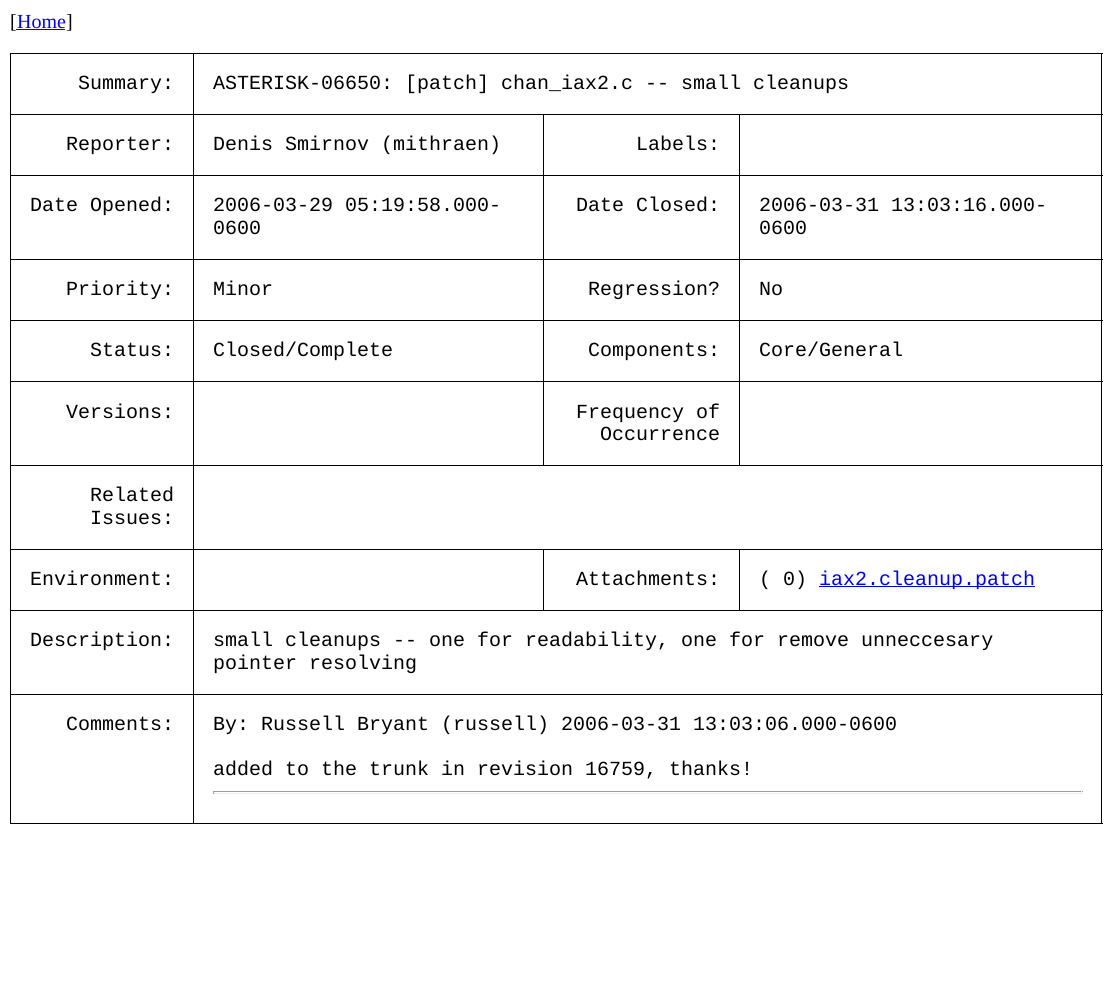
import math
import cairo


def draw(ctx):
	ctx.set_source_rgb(1, 1, 1)
	ctx.paint()
	ctx.select_font_face('Liberation Serif')
	ctx.set_font_size(20)
	ctx.set_source_rgb(0, 0, 0)
	ctx.move_to(10, 28)
	ctx.show_text('[')
	ctx.set_source_rgb(0, 0, 0.933)
	ctx.move_to(17, 28)
	ctx.show_text('Home')
	ctx.rectangle(16, 29, 49, 1)
	ctx.fill()
	ctx.set_source_rgb(0, 0, 0)
	ctx.move_to(66, 28)
	ctx.show_text(']')
	ctx.rectangle(193, 53, 910, 1)
	ctx.rectangle(739, 114, 364, 1)
	ctx.rectangle(739, 175, 364, 1)
	ctx.rectangle(739, 259, 364, 1)
	ctx.rectangle(739, 320, 364, 1)
	ctx.rectangle(739, 381, 364, 1)
	ctx.rectangle(193, 465, 910, 1)
	ctx.rectangle(739, 381, 1, 85)
	ctx.rectangle(543, 381, 197, 1)
	ctx.rectangle(739, 320, 1, 63)
	ctx.rectangle(543, 320, 197, 1)
	ctx.rectangle(739, 259, 1, 62)
	ctx.rectangle(543, 259, 197, 1)
	ctx.rectangle(739, 175, 1, 85)
	ctx.rectangle(543, 175, 197, 1)
	ctx.rectangle(739, 114, 1, 62)
	ctx.rectangle(543, 114, 197, 1)
	ctx.rectangle(543, 381, 1, 85)
	ctx.rectangle(193, 381, 351, 1)
	ctx.rectangle(543, 320, 1, 63)
	ctx.rectangle(193, 320, 351, 1)
	ctx.rectangle(543, 259, 1, 62)
	ctx.rectangle(193, 259, 351, 1)
	ctx.rectangle(543, 175, 1, 85)
	ctx.rectangle(193, 175, 351, 1)
	ctx.rectangle(543, 114, 1, 62)
	ctx.rectangle(193, 114, 351, 1)
	ctx.rectangle(739, 549, 364, 1)
	ctx.rectangle(193, 610, 910, 1)
	ctx.rectangle(739, 549, 1, 62)
	ctx.rectangle(543, 549, 197, 1)
	ctx.rectangle(543, 549, 1, 62)
	ctx.rectangle(193, 549, 351, 1)
	ctx.rectangle(193, 694, 910, 1)
	ctx.rectangle(1101, 694, 1, 130)
	ctx.rectangle(193, 823, 910, 1)
	ctx.rectangle(193, 694, 1, 130)
	ctx.rectangle(10, 694, 184, 1)
	ctx.rectangle(193, 610, 1, 85)
	ctx.rectangle(10, 610, 184, 1)
	ctx.rectangle(193, 549, 1, 62)
	ctx.rectangle(10, 549, 184, 1)
	ctx.rectangle(193, 465, 1, 85)
	ctx.rectangle(10, 465, 184, 1)
	ctx.rectangle(193, 381, 1, 85)
	ctx.rectangle(10, 381, 184, 1)
	ctx.rectangle(193, 320, 1, 63)
	ctx.rectangle(10, 320, 184, 1)
	ctx.rectangle(193, 259, 1, 62)
	ctx.rectangle(10, 259, 184, 1)
	ctx.rectangle(193, 175, 1, 85)
	ctx.rectangle(10, 175, 184, 1)
	ctx.rectangle(193, 114, 1, 62)
	ctx.rectangle(10, 114, 184, 1)
	ctx.rectangle(193, 53, 1, 62)
	ctx.rectangle(10, 53, 184, 1)
	ctx.rectangle(10, 823, 184, 1)
	ctx.rectangle(10, 694, 1, 130)
	ctx.rectangle(10, 610, 1, 85)
	ctx.rectangle(10, 549, 1, 62)
	ctx.rectangle(10, 465, 1, 85)
	ctx.rectangle(10, 381, 1, 85)
	ctx.rectangle(10, 320, 1, 63)
	ctx.rectangle(10, 259, 1, 62)
	ctx.rectangle(10, 175, 1, 85)
	ctx.rectangle(10, 114, 1, 62)
	ctx.rectangle(10, 53, 1, 62)
	ctx.fill()
	ctx.select_font_face('Liberation Mono')
	ctx.move_to(78, 89)
	ctx.show_text('Summary:')
	ctx.rectangle(1101, 610, 1, 85)
	ctx.rectangle(1101, 549, 1, 62)
	ctx.rectangle(1101, 465, 1, 85)
	ctx.rectangle(1101, 381, 1, 85)
	ctx.rectangle(1101, 320, 1, 63)
	ctx.rectangle(1101, 259, 1, 62)
	ctx.rectangle(1101, 175, 1, 85)
	ctx.rectangle(1101, 114, 1, 62)
	ctx.rectangle(1101, 53, 1, 62)
	ctx.fill()
	for x, y, s in [
		(213, 89, 'ASTERISK-06650: [patch] chan_iax2.c -- small cleanups'),
		(66, 150, 'Reporter:'),
		(213, 150, 'Denis Smirnov (mithraen)'),
		(636, 150, 'Labels:'),
		(30, 211, 'Date Opened:'),
		(213, 211, '2006-03-29 05:19:58.000-'),
		(213, 234, '0600'),
		(576, 211, 'Date Closed:'),
		(759, 211, '2006-03-31 13:03:16.000-'),
		(759, 234, '0600'),
		(66, 295, 'Priority:'),
		(213, 295, 'Minor'),
		(588, 295, 'Regression?'),
		(759, 295, 'No'),
		(90, 356, 'Status:'),
		(213, 356, 'Closed/Complete'),
		(588, 356, 'Components:'),
		(759, 356, 'Core/General'),
		(66, 418, 'Versions:'),
		(576, 418, 'Frequency of'),
		(600, 440, 'Occurrence'),
		(90, 501, 'Related'),
		(90, 524, 'Issues:'),
		(30, 585, 'Environment:'),
		(576, 585, 'Attachments:'),
		(759, 585, '( 0)'),
	]:
		ctx.move_to(x, y)
		ctx.show_text(s)
	ctx.set_source_rgb(0, 0, 0.933)
	ctx.rectangle(819, 586, 216, 1)
	ctx.fill()
	ctx.move_to(819, 585)
	ctx.show_text('iax2.cleanup.patch')
	ctx.set_source_rgb(0, 0, 0)
	for x, y, s in [
		(30, 646, 'Description:'),
		(213, 646, 'small cleanups -- one for readability, one for remove unneccesary'),
		(213, 669, 'pointer resolving'),
		(66, 730, 'Comments:'),
		(213, 730, 'By: Russell Bryant (russell) 2006-03-31 13:03:06.000-0600'),
		(213, 775, 'added to the trunk in revision 16759, thanks!'),
	]:
		ctx.move_to(x, y)
		ctx.show_text(s)
	ctx.set_source_rgb(0.624, 0.624, 0.624)
	ctx.rectangle(213, 791, 870, 1)
	ctx.fill()
	ctx.set_source_rgb(0.933, 0.933, 0.933)
	ctx.rectangle(1081, 791, 1, 3)
	ctx.rectangle(213, 793, 870, 1)
	ctx.fill()
	ctx.set_source_rgb(0.624, 0.624, 0.624)
	ctx.rectangle(213, 791, 1, 3)
	ctx.fill()


surface = cairo.ImageSurface(cairo.FORMAT_RGB24, 1112, 1008)
ctx = cairo.Context(surface)
options = cairo.FontOptions()
options.set_hint_metrics(cairo.HINT_METRICS_OFF)
options.set_hint_style(cairo.HINT_STYLE_NONE)
ctx.set_font_options(options)
ctx.set_miter_limit(4)
draw(ctx)
surface.write_to_png('image.png')
